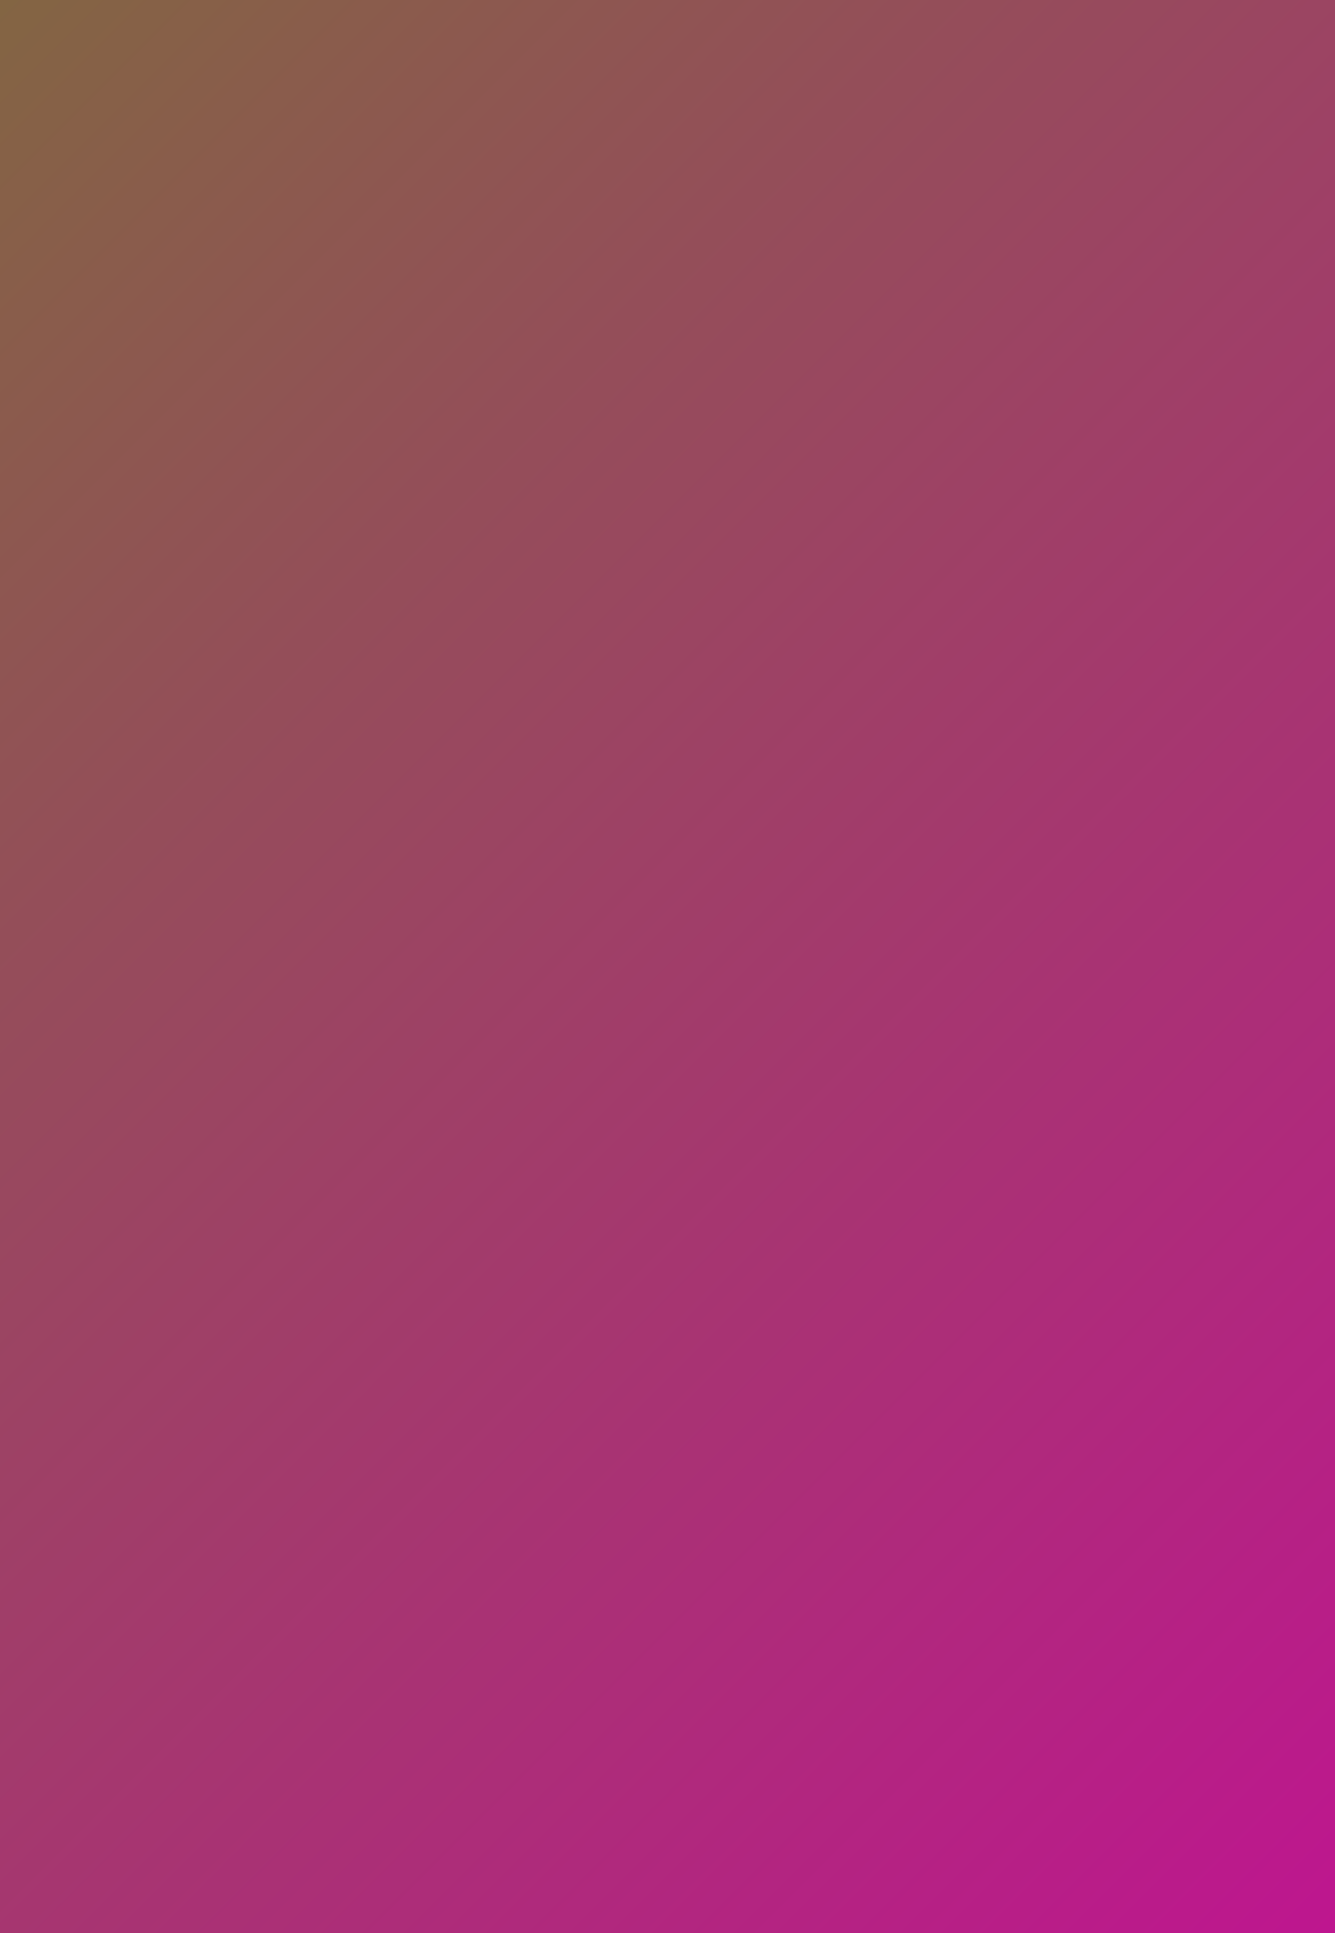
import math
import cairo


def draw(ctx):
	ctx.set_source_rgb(1, 1, 1)
	ctx.paint()
	gradient = cairo.LinearGradient(-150, 150, 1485, 1784)
	gradient.add_color_stop_rgba(0, 0.514, 0.396, 0.263, 1)
	gradient.add_color_stop_rgba(1, 0.745, 0.086, 0.561, 1)
	ctx.set_source(gradient)
	ctx.rectangle(0, 0, 1335, 1933)
	ctx.fill()


surface = cairo.ImageSurface(cairo.FORMAT_RGB24, 1335, 1933)
ctx = cairo.Context(surface)
options = cairo.FontOptions()
options.set_hint_metrics(cairo.HINT_METRICS_OFF)
options.set_hint_style(cairo.HINT_STYLE_NONE)
ctx.set_font_options(options)
ctx.set_miter_limit(4)
draw(ctx)
surface.write_to_png('image.png')
